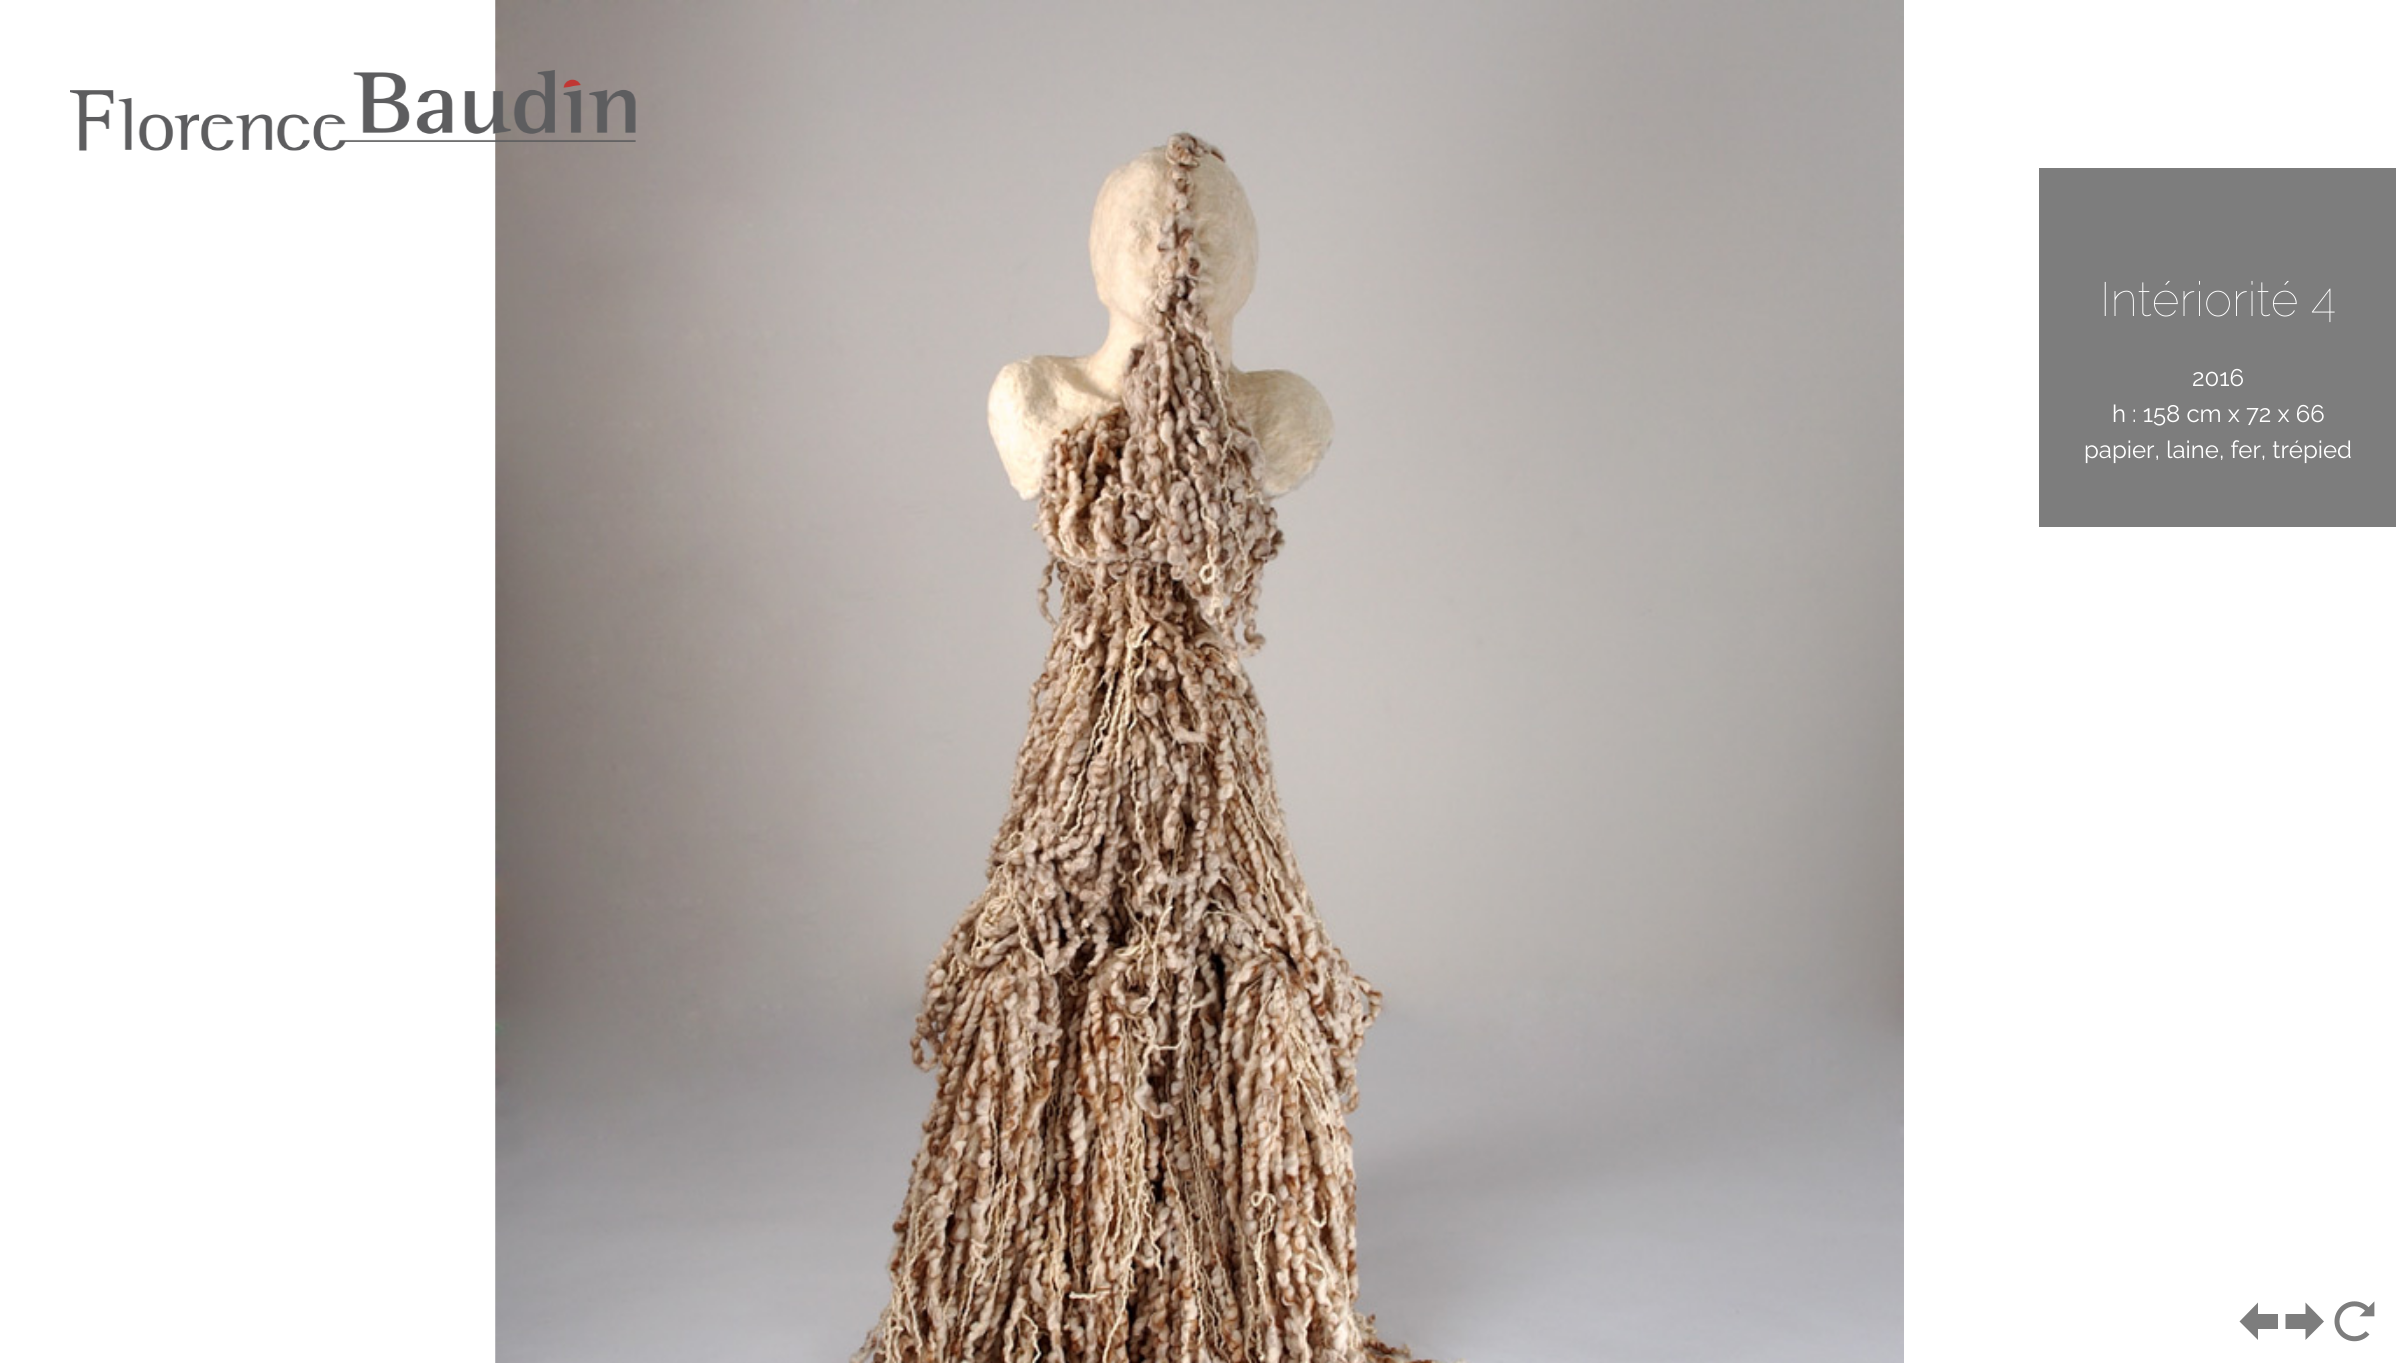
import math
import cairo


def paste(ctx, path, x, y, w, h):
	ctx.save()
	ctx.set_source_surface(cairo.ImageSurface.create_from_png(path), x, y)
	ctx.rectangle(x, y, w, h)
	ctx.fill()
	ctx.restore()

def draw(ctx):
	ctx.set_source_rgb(1, 1, 1)
	ctx.paint()
	paste(ctx, 'media/2.png', 495, 0, 1409, 1363)
	paste(ctx, 'media/1.png', 70, 70, 566, 81)
	ctx.set_source_rgb(0.49, 0.49, 0.49)
	ctx.rectangle(2039, 168, 357, 359)
	ctx.fill()
	ctx.select_font_face('Raleway Thin')
	ctx.set_font_size(48)
	ctx.set_source_rgb(1, 1, 1)
	ctx.move_to(2100, 316)
	ctx.show_text('Intériorité 4')
	ctx.select_font_face('Raleway')
	ctx.set_font_size(24)
	for x, y, s in [
		(2192, 386, '2016'),
		(2112, 422, 'h : 158 cm x 72 x 66'),
		(2084, 458, 'papier, laine, fer, trépied'),
	]:
		ctx.move_to(x, y)
		ctx.show_text(s)
	ctx.set_source_rgb(0.49, 0.49, 0.49)
	ctx.new_path()
	ctx.move_to(2239.5, 1321.5)
	ctx.line_to(2258, 1340)
	ctx.line_to(2258, 1329)
	ctx.line_to(2278, 1329)
	ctx.line_to(2278, 1314)
	ctx.line_to(2258, 1314)
	ctx.line_to(2258, 1302.5)
	ctx.close_path()
	ctx.fill()
	ctx.new_path()
	ctx.move_to(2324, 1321.5)
	ctx.line_to(2305.5, 1302.5)
	ctx.line_to(2305.5, 1314)
	ctx.line_to(2285.5, 1314)
	ctx.line_to(2285.5, 1329)
	ctx.line_to(2305.5, 1329)
	ctx.line_to(2305.5, 1340)
	ctx.close_path()
	ctx.fill()
	paste(ctx, 'media/3.png', 2334, 1301, 41, 41)


surface = cairo.ImageSurface(cairo.FORMAT_RGB24, 2396, 1363)
ctx = cairo.Context(surface)
options = cairo.FontOptions()
options.set_hint_metrics(cairo.HINT_METRICS_OFF)
options.set_hint_style(cairo.HINT_STYLE_NONE)
ctx.set_font_options(options)
ctx.set_miter_limit(4)
draw(ctx)
surface.write_to_png('image.png')
